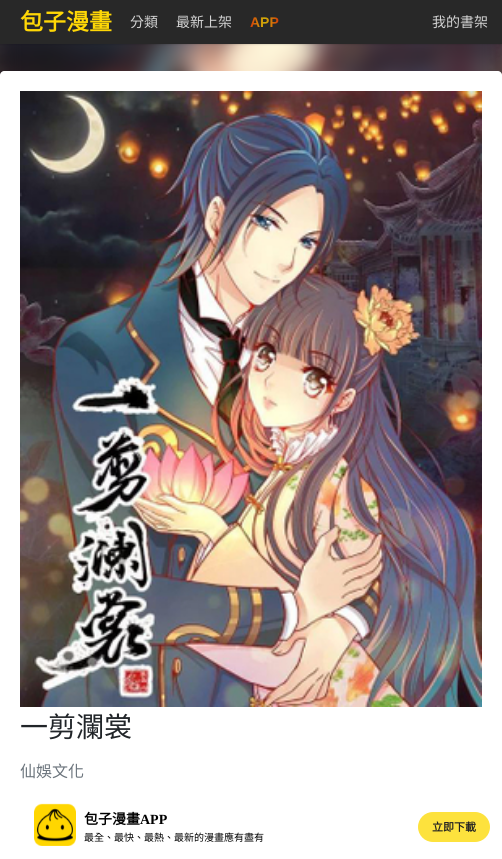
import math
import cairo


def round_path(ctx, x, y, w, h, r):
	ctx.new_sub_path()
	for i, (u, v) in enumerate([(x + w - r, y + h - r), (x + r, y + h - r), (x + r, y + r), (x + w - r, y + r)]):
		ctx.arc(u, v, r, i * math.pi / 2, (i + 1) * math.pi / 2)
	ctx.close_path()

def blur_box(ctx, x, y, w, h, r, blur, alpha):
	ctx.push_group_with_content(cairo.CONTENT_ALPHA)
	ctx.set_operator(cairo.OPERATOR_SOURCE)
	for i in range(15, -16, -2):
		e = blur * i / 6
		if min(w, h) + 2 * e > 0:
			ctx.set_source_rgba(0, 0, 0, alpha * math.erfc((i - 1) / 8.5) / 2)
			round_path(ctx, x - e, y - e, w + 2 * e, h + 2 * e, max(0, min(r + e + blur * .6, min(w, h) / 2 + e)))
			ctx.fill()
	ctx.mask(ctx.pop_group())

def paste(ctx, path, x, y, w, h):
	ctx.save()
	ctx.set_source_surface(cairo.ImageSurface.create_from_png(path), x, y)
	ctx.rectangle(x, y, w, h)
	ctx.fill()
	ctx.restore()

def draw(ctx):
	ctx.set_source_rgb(1, 1, 1)
	ctx.paint()
	paste(ctx, 'media/1.png', 0, 44, 502, 31)
	paste(ctx, 'media/2.png', 0, 44, 502, 31)
	ctx.set_source_rgb(0, 0, 0)
	blur_box(ctx, 0, 1, 502, 44, 0, 0.5, 0.1)
	ctx.set_source_rgb(0.157, 0.157, 0.157)
	ctx.rectangle(0, 0, 502, 44)
	ctx.fill()
	ctx.select_font_face('Noto Sans CJK TC', cairo.FONT_SLANT_NORMAL, cairo.FONT_WEIGHT_BOLD)
	ctx.set_font_size(23)
	ctx.set_source_rgb(1, 0.843, 0.024)
	ctx.move_to(20, 30)
	ctx.show_text('包子漫畫')
	ctx.select_font_face('Noto Sans CJK TC')
	ctx.set_font_size(14)
	ctx.set_source_rgb(0.831, 0.831, 0.831)
	ctx.move_to(130, 27)
	ctx.show_text('分類')
	ctx.move_to(176, 27)
	ctx.show_text('最新上架')
	ctx.select_font_face('Liberation Sans', cairo.FONT_SLANT_NORMAL, cairo.FONT_WEIGHT_BOLD)
	gradient = cairo.LinearGradient(244, 22, 285, 22)
	gradient.add_color_stop_rgba(0, 0.831, 0.031, 0.031, 1)
	gradient.add_color_stop_rgba(0.5, 0.831, 0.706, 0.031, 1)
	gradient.add_color_stop_rgba(1, 0.831, 0.031, 0.031, 1)
	ctx.set_source(gradient)
	ctx.move_to(250, 27)
	ctx.show_text('APP')
	ctx.select_font_face('Noto Sans CJK TC')
	ctx.set_source_rgb(0.831, 0.831, 0.831)
	ctx.move_to(432, 27)
	ctx.show_text('我的書架')
	ctx.set_source_rgb(1, 1, 1)
	ctx.new_path()
	ctx.move_to(4, 71)
	ctx.line_to(498, 71)
	ctx.curve_to(500, 71, 502, 73, 502, 75)
	ctx.line_to(502, 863)
	ctx.line_to(0, 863)
	ctx.line_to(0, 75)
	ctx.curve_to(0, 73, 2, 71, 4, 71)
	ctx.close_path()
	ctx.fill()
	paste(ctx, 'media/3.png', 20, 91, 462, 616)
	ctx.set_font_size(28)
	ctx.set_source_rgb(0.129, 0.145, 0.161)
	ctx.move_to(20, 737)
	ctx.show_text('一剪瀾裳')
	ctx.set_font_size(16)
	ctx.set_source_rgb(0.424, 0.459, 0.49)
	ctx.move_to(20, 777)
	ctx.show_text('仙娛文化')
	paste(ctx, 'media/4.png', 34, 803, 42, 43)
	ctx.select_font_face('Noto Sans CJK TC', cairo.FONT_SLANT_NORMAL, cairo.FONT_WEIGHT_BOLD)
	ctx.set_font_size(14)
	ctx.set_source_rgb(0, 0, 0)
	ctx.move_to(84, 824)
	ctx.show_text('包子漫畫')
	ctx.select_font_face('Liberation Serif', cairo.FONT_SLANT_NORMAL, cairo.FONT_WEIGHT_BOLD)
	ctx.move_to(140, 824)
	ctx.show_text('APP')
	ctx.select_font_face('Noto Sans CJK TC')
	ctx.set_font_size(10)
	ctx.move_to(84, 841)
	ctx.show_text('最全、最快、最熱、最新的漫畫應有盡有')
	ctx.set_source_rgb(0.992, 0.886, 0.239)
	round_path(ctx, 418, 812, 72, 30, 15)
	ctx.fill()
	ctx.select_font_face('Noto Sans CJK TC', cairo.FONT_SLANT_NORMAL, cairo.FONT_WEIGHT_BOLD)
	ctx.set_font_size(11)
	ctx.set_source_rgb(0.133, 0.133, 0.133)
	ctx.move_to(432, 831)
	ctx.show_text('立即下載')


surface = cairo.ImageSurface(cairo.FORMAT_RGB24, 502, 859)
ctx = cairo.Context(surface)
options = cairo.FontOptions()
options.set_hint_metrics(cairo.HINT_METRICS_OFF)
options.set_hint_style(cairo.HINT_STYLE_NONE)
ctx.set_font_options(options)
ctx.set_miter_limit(4)
draw(ctx)
surface.write_to_png('image.png')
